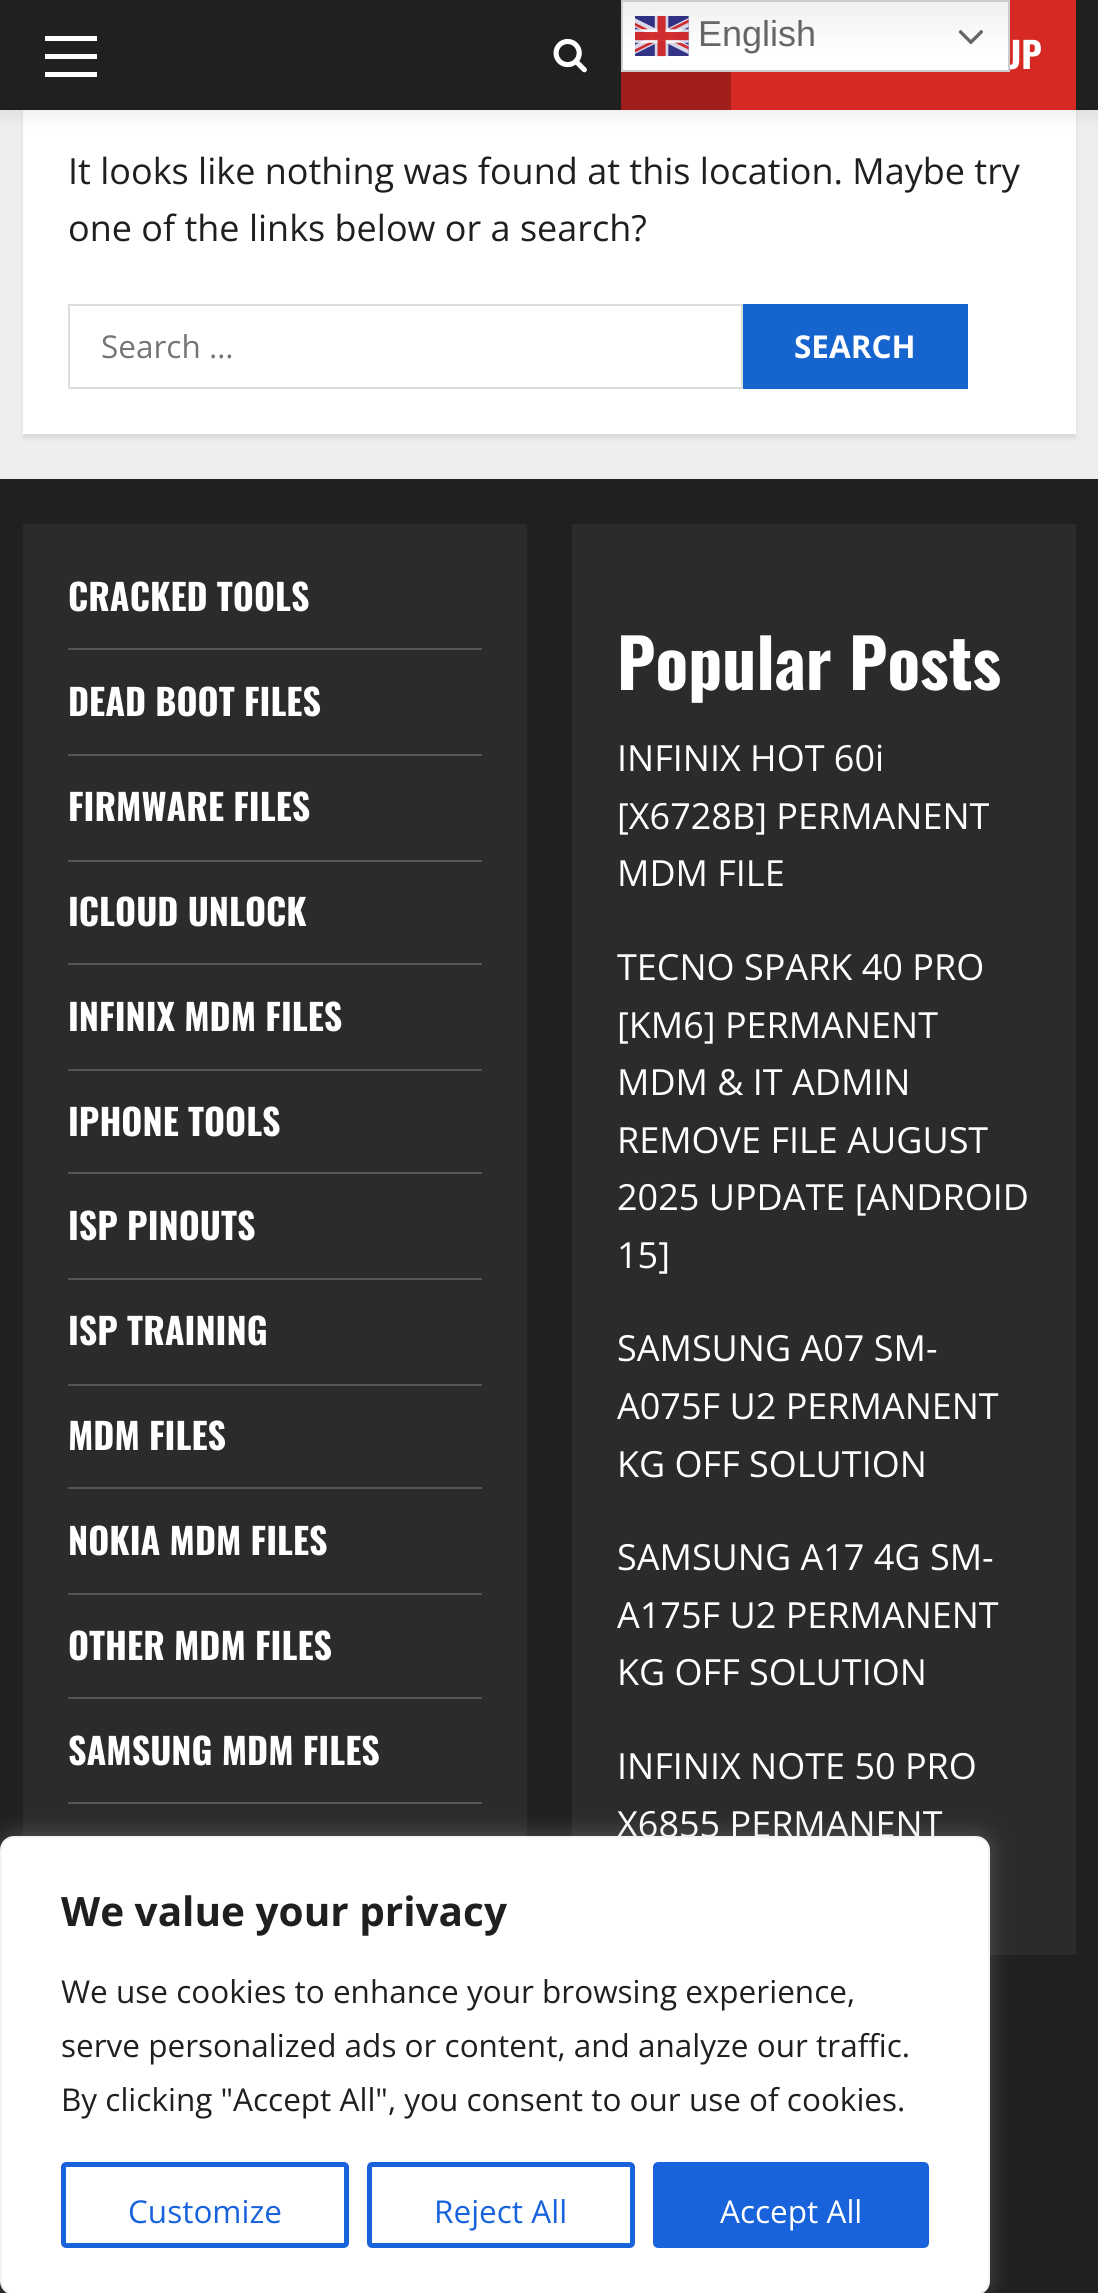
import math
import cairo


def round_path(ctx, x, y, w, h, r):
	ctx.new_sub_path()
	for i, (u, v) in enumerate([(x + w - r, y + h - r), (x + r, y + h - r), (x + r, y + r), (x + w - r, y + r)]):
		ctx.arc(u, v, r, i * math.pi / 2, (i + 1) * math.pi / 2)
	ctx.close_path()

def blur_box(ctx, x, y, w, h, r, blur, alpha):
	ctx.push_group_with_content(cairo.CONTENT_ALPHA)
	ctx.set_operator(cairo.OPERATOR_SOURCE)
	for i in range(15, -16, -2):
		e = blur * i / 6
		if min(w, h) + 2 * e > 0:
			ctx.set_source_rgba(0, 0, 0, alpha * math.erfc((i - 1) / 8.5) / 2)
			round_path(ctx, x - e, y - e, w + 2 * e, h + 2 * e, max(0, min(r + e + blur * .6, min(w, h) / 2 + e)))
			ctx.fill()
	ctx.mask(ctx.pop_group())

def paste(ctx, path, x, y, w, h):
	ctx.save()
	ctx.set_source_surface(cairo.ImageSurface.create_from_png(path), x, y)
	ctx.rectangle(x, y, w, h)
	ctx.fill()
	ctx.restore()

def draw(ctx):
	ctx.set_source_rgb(0.933, 0.933, 0.933)
	ctx.paint()
	ctx.set_source_rgb(0, 0, 0)
	blur_box(ctx, 23, -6, 1053, 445, 0, 2, 0.08)
	ctx.set_source_rgb(1, 1, 1)
	ctx.rectangle(23, 110, 1053, 324)
	ctx.fill()
	ctx.set_source_rgb(0, 0, 0)
	blur_box(ctx, 0, 5, 1098, 110, 0, 9, 0.08)
	ctx.set_source_rgb(0.125, 0.125, 0.125)
	ctx.rectangle(0, 0, 1098, 110)
	ctx.fill()
	ctx.set_source_rgb(0.843, 0.161, 0.141)
	ctx.rectangle(731, 0, 345, 110)
	ctx.fill()
	ctx.select_font_face('Oswald', cairo.FONT_SLANT_NORMAL, cairo.FONT_WEIGHT_BOLD)
	ctx.set_font_size(36)
	ctx.set_source_rgb(1, 1, 1)
	ctx.move_to(1000, 69)
	ctx.show_text('UP')
	gradient = cairo.LinearGradient(816, 0, 816, 72)
	gradient.add_color_stop_rgba(0, 0.937, 0.937, 0.937, 1)
	gradient.add_color_stop_rgba(0.7, 1, 1, 1, 1)
	ctx.set_source(gradient)
	ctx.rectangle(623, 2, 385, 68)
	ctx.fill()
	ctx.rectangle(622, 1, 387, 70)
	ctx.set_source_rgb(0.8, 0.8, 0.8)
	ctx.stroke()
	paste(ctx, 'media/1.png', 635, 15, 54, 42)
	ctx.select_font_face('Liberation Sans')
	ctx.set_source_rgb(0.4, 0.4, 0.4)
	ctx.move_to(698, 46)
	ctx.show_text('English')
	paste(ctx, 'media/2.png', 959, 30, 24, 15)
	ctx.set_source_rgb(1, 1, 1)
	ctx.rectangle(45, 54, 52, 5)
	ctx.rectangle(45, 36, 52, 5)
	ctx.rectangle(45, 72, 52, 5)
	ctx.fill()
	paste(ctx, 'media/3.png', 553, 38, 34, 35)
	ctx.set_source_rgb(0.631, 0.122, 0.106)
	ctx.rectangle(621, 72, 110, 38)
	ctx.fill()
	ctx.select_font_face('Open Sans')
	ctx.set_source_rgb(0.122, 0.122, 0.122)
	ctx.move_to(68, 184)
	ctx.show_text('It looks like nothing was found at this location. Maybe try')
	ctx.move_to(68, 241)
	ctx.show_text('one of the links below or a search?')
	ctx.rectangle(69, 305, 673, 83)
	ctx.set_source_rgb(0.863, 0.863, 0.863)
	ctx.stroke()
	ctx.set_font_size(31.5)
	ctx.set_source_rgb(0.459, 0.459, 0.459)
	ctx.move_to(101, 358)
	ctx.show_text('Search …')
	ctx.set_source_rgb(0.086, 0.396, 0.812)
	ctx.rectangle(743, 304, 225, 85)
	ctx.fill()
	ctx.select_font_face('Open Sans', cairo.FONT_SLANT_NORMAL, cairo.FONT_WEIGHT_BOLD)
	ctx.set_source_rgb(1, 1, 1)
	ctx.move_to(794, 358)
	ctx.show_text('SEARCH')
	ctx.set_source_rgb(0.125, 0.125, 0.125)
	ctx.rectangle(0, 479, 1098, 1814)
	ctx.fill()
	ctx.set_source_rgb(0.169, 0.169, 0.169)
	ctx.rectangle(23, 524, 504, 1312)
	ctx.fill()
	ctx.set_source_rgb(0.333, 0.333, 0.333)
	ctx.rectangle(68, 648, 414, 2)
	ctx.fill()
	ctx.select_font_face('Oswald', cairo.FONT_SLANT_NORMAL, cairo.FONT_WEIGHT_BOLD)
	ctx.set_font_size(36)
	ctx.set_source_rgb(1, 1, 1)
	ctx.move_to(68, 611)
	ctx.show_text('CRACKED TOOLS')
	ctx.set_source_rgb(0.333, 0.333, 0.333)
	ctx.rectangle(68, 754, 414, 2)
	ctx.fill()
	ctx.set_source_rgb(1, 1, 1)
	ctx.move_to(68, 716)
	ctx.show_text('DEAD BOOT FILES')
	ctx.set_source_rgb(0.333, 0.333, 0.333)
	ctx.rectangle(68, 860, 414, 2)
	ctx.fill()
	ctx.set_source_rgb(1, 1, 1)
	ctx.move_to(68, 821)
	ctx.show_text('FIRMWARE FILES')
	ctx.set_source_rgb(0.333, 0.333, 0.333)
	ctx.rectangle(68, 963, 414, 2)
	ctx.fill()
	ctx.set_source_rgb(1, 1, 1)
	ctx.move_to(68, 926)
	ctx.show_text('ICLOUD UNLOCK')
	ctx.set_source_rgb(0.333, 0.333, 0.333)
	ctx.rectangle(68, 1069, 414, 2)
	ctx.fill()
	ctx.set_source_rgb(1, 1, 1)
	ctx.move_to(68, 1031)
	ctx.show_text('INFINIX MDM FILES')
	ctx.set_source_rgb(0.333, 0.333, 0.333)
	ctx.rectangle(68, 1172, 414, 2)
	ctx.fill()
	ctx.set_source_rgb(1, 1, 1)
	ctx.move_to(68, 1136)
	ctx.show_text('IPHONE TOOLS')
	ctx.set_source_rgb(0.333, 0.333, 0.333)
	ctx.rectangle(68, 1278, 414, 2)
	ctx.fill()
	ctx.set_source_rgb(1, 1, 1)
	ctx.move_to(68, 1240)
	ctx.show_text('ISP PINOUTS')
	ctx.set_source_rgb(0.333, 0.333, 0.333)
	ctx.rectangle(68, 1384, 414, 2)
	ctx.fill()
	ctx.set_source_rgb(1, 1, 1)
	ctx.move_to(68, 1345)
	ctx.show_text('ISP TRAINING')
	ctx.set_source_rgb(0.333, 0.333, 0.333)
	ctx.rectangle(68, 1487, 414, 2)
	ctx.fill()
	ctx.set_source_rgb(1, 1, 1)
	ctx.move_to(68, 1450)
	ctx.show_text('MDM FILES')
	ctx.set_source_rgb(0.333, 0.333, 0.333)
	ctx.rectangle(68, 1593, 414, 2)
	ctx.fill()
	ctx.set_source_rgb(1, 1, 1)
	ctx.move_to(68, 1555)
	ctx.show_text('NOKIA MDM FILES')
	ctx.set_source_rgb(0.333, 0.333, 0.333)
	ctx.rectangle(68, 1697, 414, 2)
	ctx.fill()
	ctx.set_source_rgb(1, 1, 1)
	ctx.move_to(68, 1660)
	ctx.show_text('OTHER MDM FILES')
	ctx.set_source_rgb(0.333, 0.333, 0.333)
	ctx.rectangle(68, 1802, 414, 2)
	ctx.fill()
	ctx.set_source_rgb(1, 1, 1)
	ctx.move_to(68, 1765)
	ctx.show_text('SAMSUNG MDM FILES')
	ctx.set_source_rgb(0.169, 0.169, 0.169)
	ctx.rectangle(572, 524, 504, 1431)
	ctx.fill()
	ctx.set_font_size(67.5)
	ctx.set_source_rgb(1, 1, 1)
	ctx.move_to(617, 690)
	ctx.show_text('Popular Posts')
	ctx.select_font_face('Open Sans')
	ctx.set_font_size(36)
	for x, y, s in [
		(617, 771, 'INFINIX HOT 60i'),
		(617, 829, '[X6728B] PERMANENT'),
		(617, 886, 'MDM FILE'),
	]:
		ctx.move_to(x, y)
		ctx.show_text(s)
	ctx.save()
	ctx.rectangle(617, 941, 414, 344)
	ctx.clip()
	ctx.move_to(617, 980)
	ctx.show_text('TECNO SPARK 40 PRO')
	ctx.restore()
	for x, y, s in [
		(617, 1038, '[KM6] PERMANENT'),
		(617, 1095, 'MDM & IT ADMIN'),
		(617, 1153, 'REMOVE FILE AUGUST'),
		(617, 1210, '2025 UPDATE [ANDROID'),
		(617, 1268, '15]'),
		(617, 1361, 'SAMSUNG A07 SM-'),
		(617, 1419, 'A075F U2 PERMANENT'),
		(617, 1477, 'KG OFF SOLUTION'),
		(617, 1570, 'SAMSUNG A17 4G SM-'),
		(617, 1628, 'A175F U2 PERMANENT'),
		(617, 1685, 'KG OFF SOLUTION'),
		(617, 1779, 'INFINIX NOTE 50 PRO'),
		(617, 1837, 'X6855 PERMANENT'),
	]:
		ctx.move_to(x, y)
		ctx.show_text(s)
	ctx.set_source_rgb(0.675, 0.671, 0.671)
	blur_box(ctx, 0, 1834, 990, 459, 14, 11, 0.3)
	ctx.set_source_rgb(1, 1, 1)
	round_path(ctx, 1, 1837, 988, 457, 13)
	ctx.fill_preserve()
	ctx.set_source_rgb(0.957, 0.957, 0.957)
	ctx.stroke()
	ctx.select_font_face('Open Sans', cairo.FONT_SLANT_NORMAL, cairo.FONT_WEIGHT_BOLD)
	ctx.set_font_size(40.5)
	ctx.set_source_rgb(0.122, 0.122, 0.122)
	ctx.move_to(61, 1926)
	ctx.show_text('We value your privacy')
	ctx.select_font_face('Open Sans')
	ctx.set_font_size(31.5)
	for x, y, s in [
		(61, 2003, 'We use cookies to enhance your browsing experience,'),
		(61, 2057, 'serve personalized ads or content, and analyze our traffic.'),
		(61, 2111, 'By clicking "Accept All", you consent to our use of cookies.'),
	]:
		ctx.move_to(x, y)
		ctx.show_text(s)
	round_path(ctx, 63.5, 2164.5, 283, 81, 2.5)
	ctx.set_source_rgb(0.094, 0.388, 0.863)
	ctx.set_line_width(5)
	ctx.stroke()
	ctx.move_to(128, 2223)
	ctx.show_text('Customize')
	round_path(ctx, 369.5, 2164.5, 263, 81, 2.5)
	ctx.stroke()
	ctx.move_to(434, 2223)
	ctx.show_text('Reject All')
	round_path(ctx, 655.5, 2164.5, 271, 81, 2.5)
	ctx.fill_preserve()
	ctx.stroke()
	ctx.set_source_rgb(1, 1, 1)
	ctx.move_to(720, 2223)
	ctx.show_text('Accept All')


surface = cairo.ImageSurface(cairo.FORMAT_RGB24, 1098, 2293)
ctx = cairo.Context(surface)
options = cairo.FontOptions()
options.set_hint_metrics(cairo.HINT_METRICS_OFF)
options.set_hint_style(cairo.HINT_STYLE_NONE)
ctx.set_font_options(options)
ctx.set_miter_limit(4)
draw(ctx)
surface.write_to_png('image.png')
